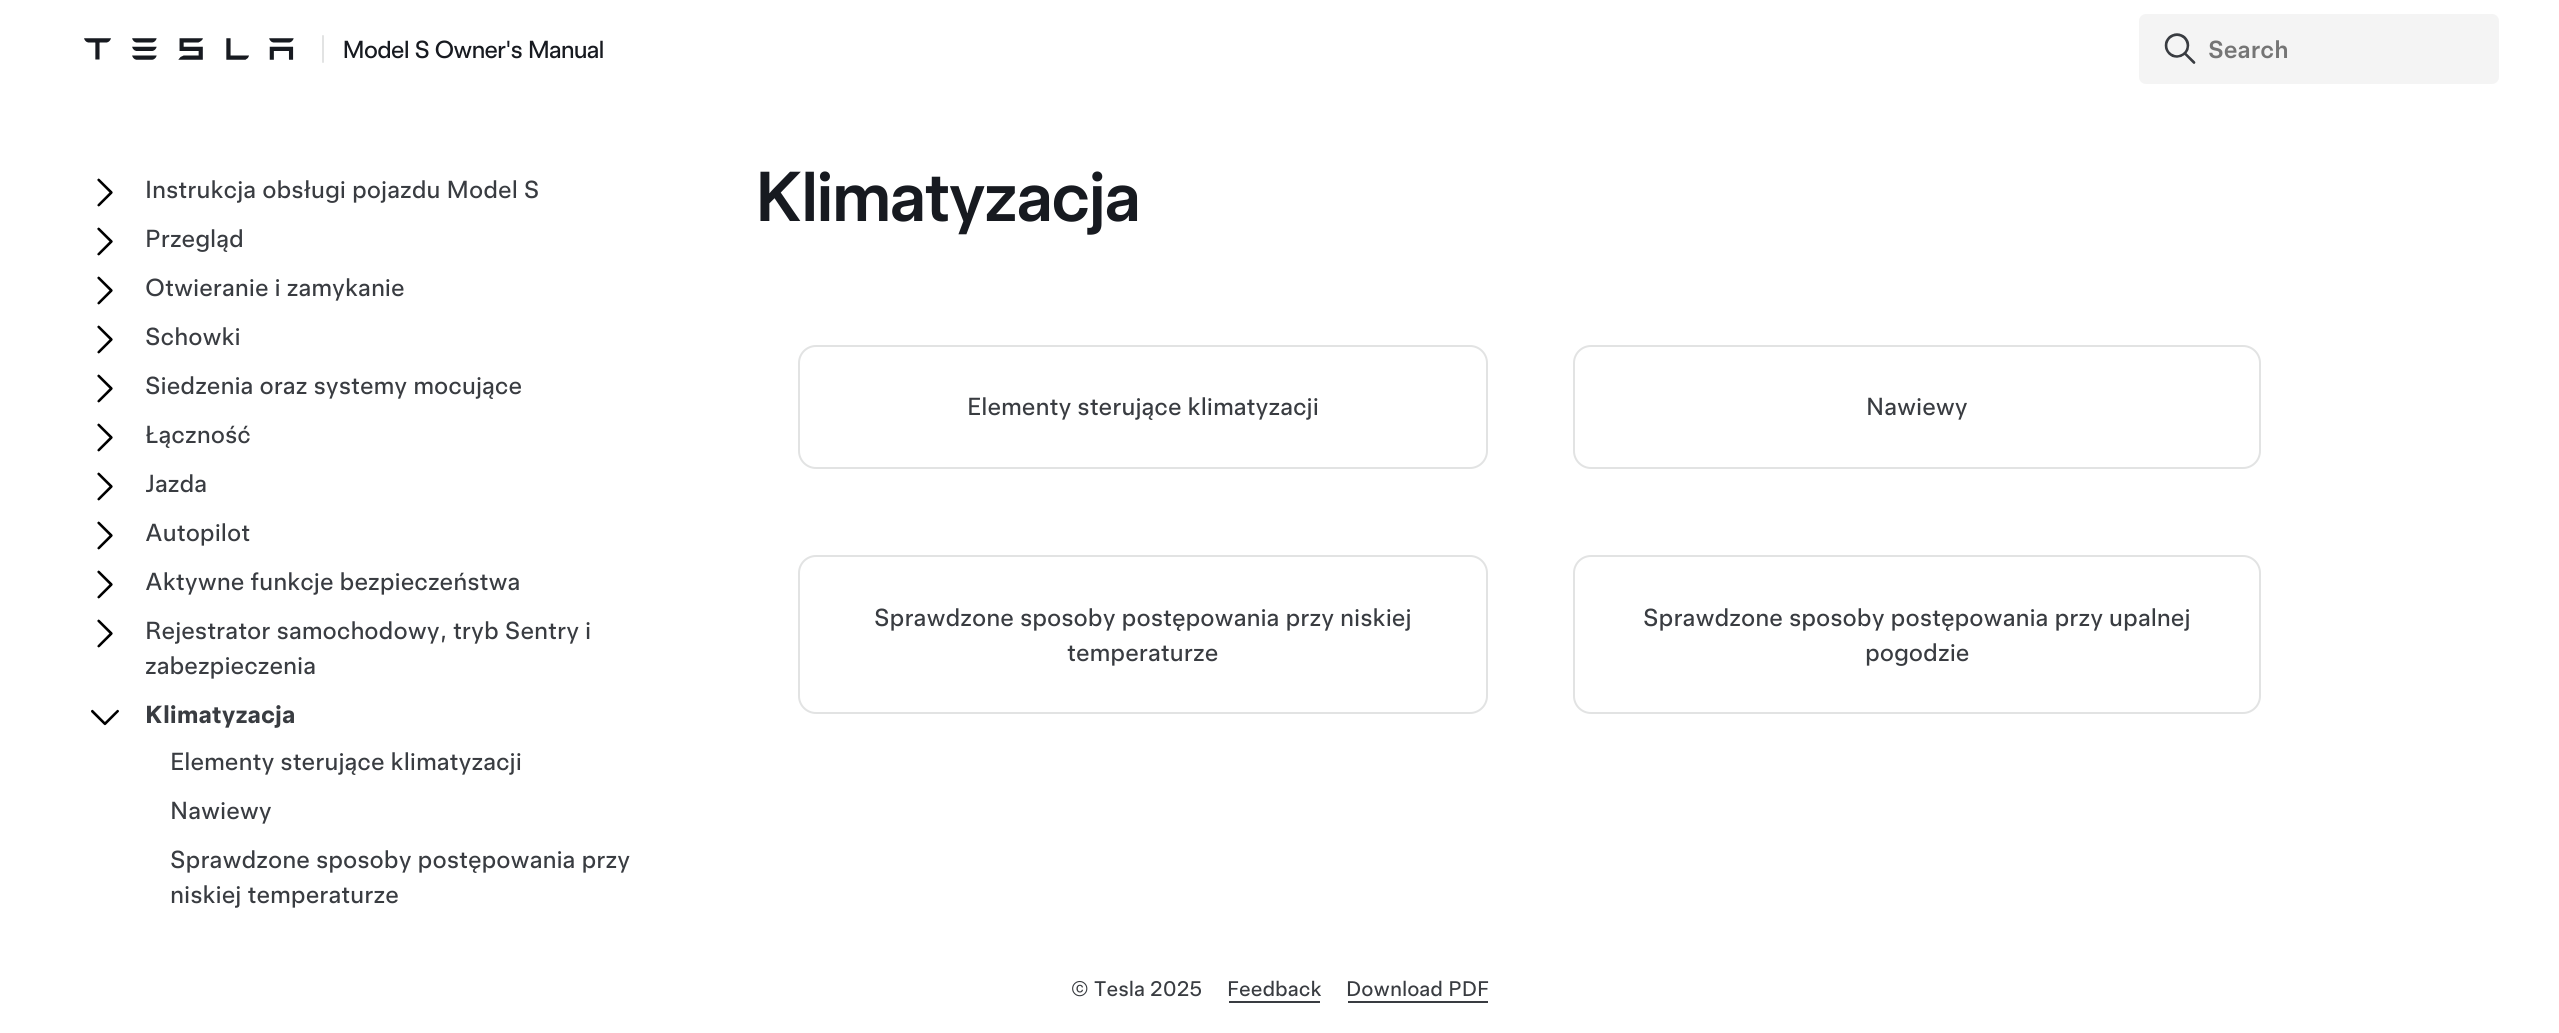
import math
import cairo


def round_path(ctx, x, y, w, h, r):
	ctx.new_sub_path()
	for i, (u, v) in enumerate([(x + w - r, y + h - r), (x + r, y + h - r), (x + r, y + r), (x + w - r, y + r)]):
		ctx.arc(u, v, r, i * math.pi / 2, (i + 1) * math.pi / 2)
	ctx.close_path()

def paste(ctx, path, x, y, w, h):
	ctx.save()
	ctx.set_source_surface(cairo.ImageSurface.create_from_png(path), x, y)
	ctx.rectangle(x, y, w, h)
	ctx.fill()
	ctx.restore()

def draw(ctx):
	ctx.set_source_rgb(1, 1, 1)
	ctx.paint()
	paste(ctx, 'media/1.png', 84, 38, 210, 22)
	ctx.set_source_rgb(0.886, 0.89, 0.89)
	round_path(ctx, 322, 35, 2, 28, 1)
	ctx.fill()
	ctx.select_font_face('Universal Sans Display')
	ctx.set_font_size(24.5)
	ctx.set_source_rgb(0.09, 0.102, 0.125)
	ctx.move_to(343, 58)
	ctx.show_text('Model S Owner\'s Manual')
	ctx.set_source_rgb(0.957, 0.957, 0.957)
	round_path(ctx, 2140, 15, 358, 68, 6)
	ctx.fill_preserve()
	ctx.stroke()
	paste(ctx, 'media/2.png', 2164, 33, 32, 31)
	ctx.select_font_face('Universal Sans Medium')
	ctx.set_source_rgb(0.459, 0.459, 0.459)
	ctx.move_to(2208, 58)
	ctx.show_text('Search')
	paste(ctx, 'media/3.png', 97, 178, 16, 29)
	ctx.select_font_face('Universal Sans')
	ctx.set_source_rgb(0.224, 0.235, 0.255)
	ctx.move_to(145, 198)
	ctx.show_text('Instrukcja obsługi pojazdu Model S')
	paste(ctx, 'media/4.png', 97, 227, 16, 29)
	ctx.move_to(145, 247)
	ctx.show_text('Przegląd')
	paste(ctx, 'media/3.png', 97, 276, 16, 29)
	ctx.move_to(145, 296)
	ctx.show_text('Otwieranie i zamykanie')
	paste(ctx, 'media/3.png', 97, 325, 16, 29)
	ctx.move_to(145, 345)
	ctx.show_text('Schowki')
	paste(ctx, 'media/3.png', 97, 374, 16, 29)
	ctx.move_to(145, 394)
	ctx.show_text('Siedzenia oraz systemy mocujące')
	paste(ctx, 'media/3.png', 97, 423, 16, 29)
	ctx.move_to(145, 443)
	ctx.show_text('Łączność')
	paste(ctx, 'media/3.png', 97, 472, 16, 29)
	ctx.move_to(145, 492)
	ctx.show_text('Jazda')
	paste(ctx, 'media/3.png', 97, 521, 16, 29)
	ctx.move_to(145, 541)
	ctx.show_text('Autopilot')
	paste(ctx, 'media/3.png', 97, 570, 16, 29)
	ctx.move_to(145, 590)
	ctx.show_text('Aktywne funkcje bezpieczeństwa')
	paste(ctx, 'media/3.png', 97, 619, 16, 29)
	ctx.move_to(145, 639)
	ctx.show_text('Rejestrator samochodowy, tryb Sentry i')
	ctx.move_to(145, 674)
	ctx.show_text('zabezpieczenia')
	paste(ctx, 'media/5.png', 91, 709, 28, 17)
	ctx.select_font_face('Universal Sans', cairo.FONT_SLANT_NORMAL, cairo.FONT_WEIGHT_BOLD)
	ctx.move_to(145, 723)
	ctx.show_text('Klimatyzacja')
	ctx.select_font_face('Universal Sans')
	for x, y, s in [
		(170, 770, 'Elementy sterujące klimatyzacji'),
		(170, 819, 'Nawiewy'),
		(170, 868, 'Sprawdzone sposoby postępowania przy'),
		(170, 903, 'niskiej temperaturze'),
	]:
		ctx.move_to(x, y)
		ctx.show_text(s)
	ctx.select_font_face('Universal Sans Display Medium')
	ctx.set_font_size(70)
	ctx.set_source_rgb(0.09, 0.102, 0.125)
	ctx.move_to(756, 221)
	ctx.show_text('Klimatyzacja')
	round_path(ctx, 799, 346, 688, 122, 17)
	ctx.set_source_rgb(0.886, 0.89, 0.89)
	ctx.stroke()
	ctx.select_font_face('Universal Sans')
	ctx.set_font_size(24.5)
	ctx.set_source_rgb(0.224, 0.235, 0.255)
	ctx.move_to(967, 415)
	ctx.show_text('Elementy sterujące klimatyzacji')
	round_path(ctx, 1574, 346, 686, 122, 17)
	ctx.set_source_rgb(0.886, 0.89, 0.89)
	ctx.stroke()
	ctx.set_source_rgb(0.224, 0.235, 0.255)
	ctx.move_to(1866, 415)
	ctx.show_text('Nawiewy')
	round_path(ctx, 799, 556, 688, 157, 17)
	ctx.set_source_rgb(0.886, 0.89, 0.89)
	ctx.stroke()
	ctx.set_source_rgb(0.224, 0.235, 0.255)
	ctx.move_to(874, 626)
	ctx.show_text('Sprawdzone sposoby postępowania przy niskiej')
	ctx.move_to(1067, 661)
	ctx.show_text('temperaturze')
	round_path(ctx, 1574, 556, 686, 157, 17)
	ctx.set_source_rgb(0.886, 0.89, 0.89)
	ctx.stroke()
	ctx.set_source_rgb(0.224, 0.235, 0.255)
	ctx.move_to(1643, 626)
	ctx.show_text('Sprawdzone sposoby postępowania przy upalnej')
	ctx.move_to(1865, 661)
	ctx.show_text('pogodzie')
	ctx.set_font_size(21)
	ctx.move_to(1071, 996)
	ctx.show_text('© Tesla 2025')
	ctx.move_to(1227, 996)
	ctx.show_text('Feedback')
	ctx.rectangle(1229, 1001, 91, 2)
	ctx.fill()
	ctx.move_to(1346, 996)
	ctx.show_text('Download PDF')
	ctx.rectangle(1348, 1001, 140, 2)
	ctx.fill()


surface = cairo.ImageSurface(cairo.FORMAT_RGB24, 2559, 1033)
ctx = cairo.Context(surface)
options = cairo.FontOptions()
options.set_hint_metrics(cairo.HINT_METRICS_OFF)
options.set_hint_style(cairo.HINT_STYLE_NONE)
ctx.set_font_options(options)
ctx.set_miter_limit(4)
draw(ctx)
surface.write_to_png('image.png')
